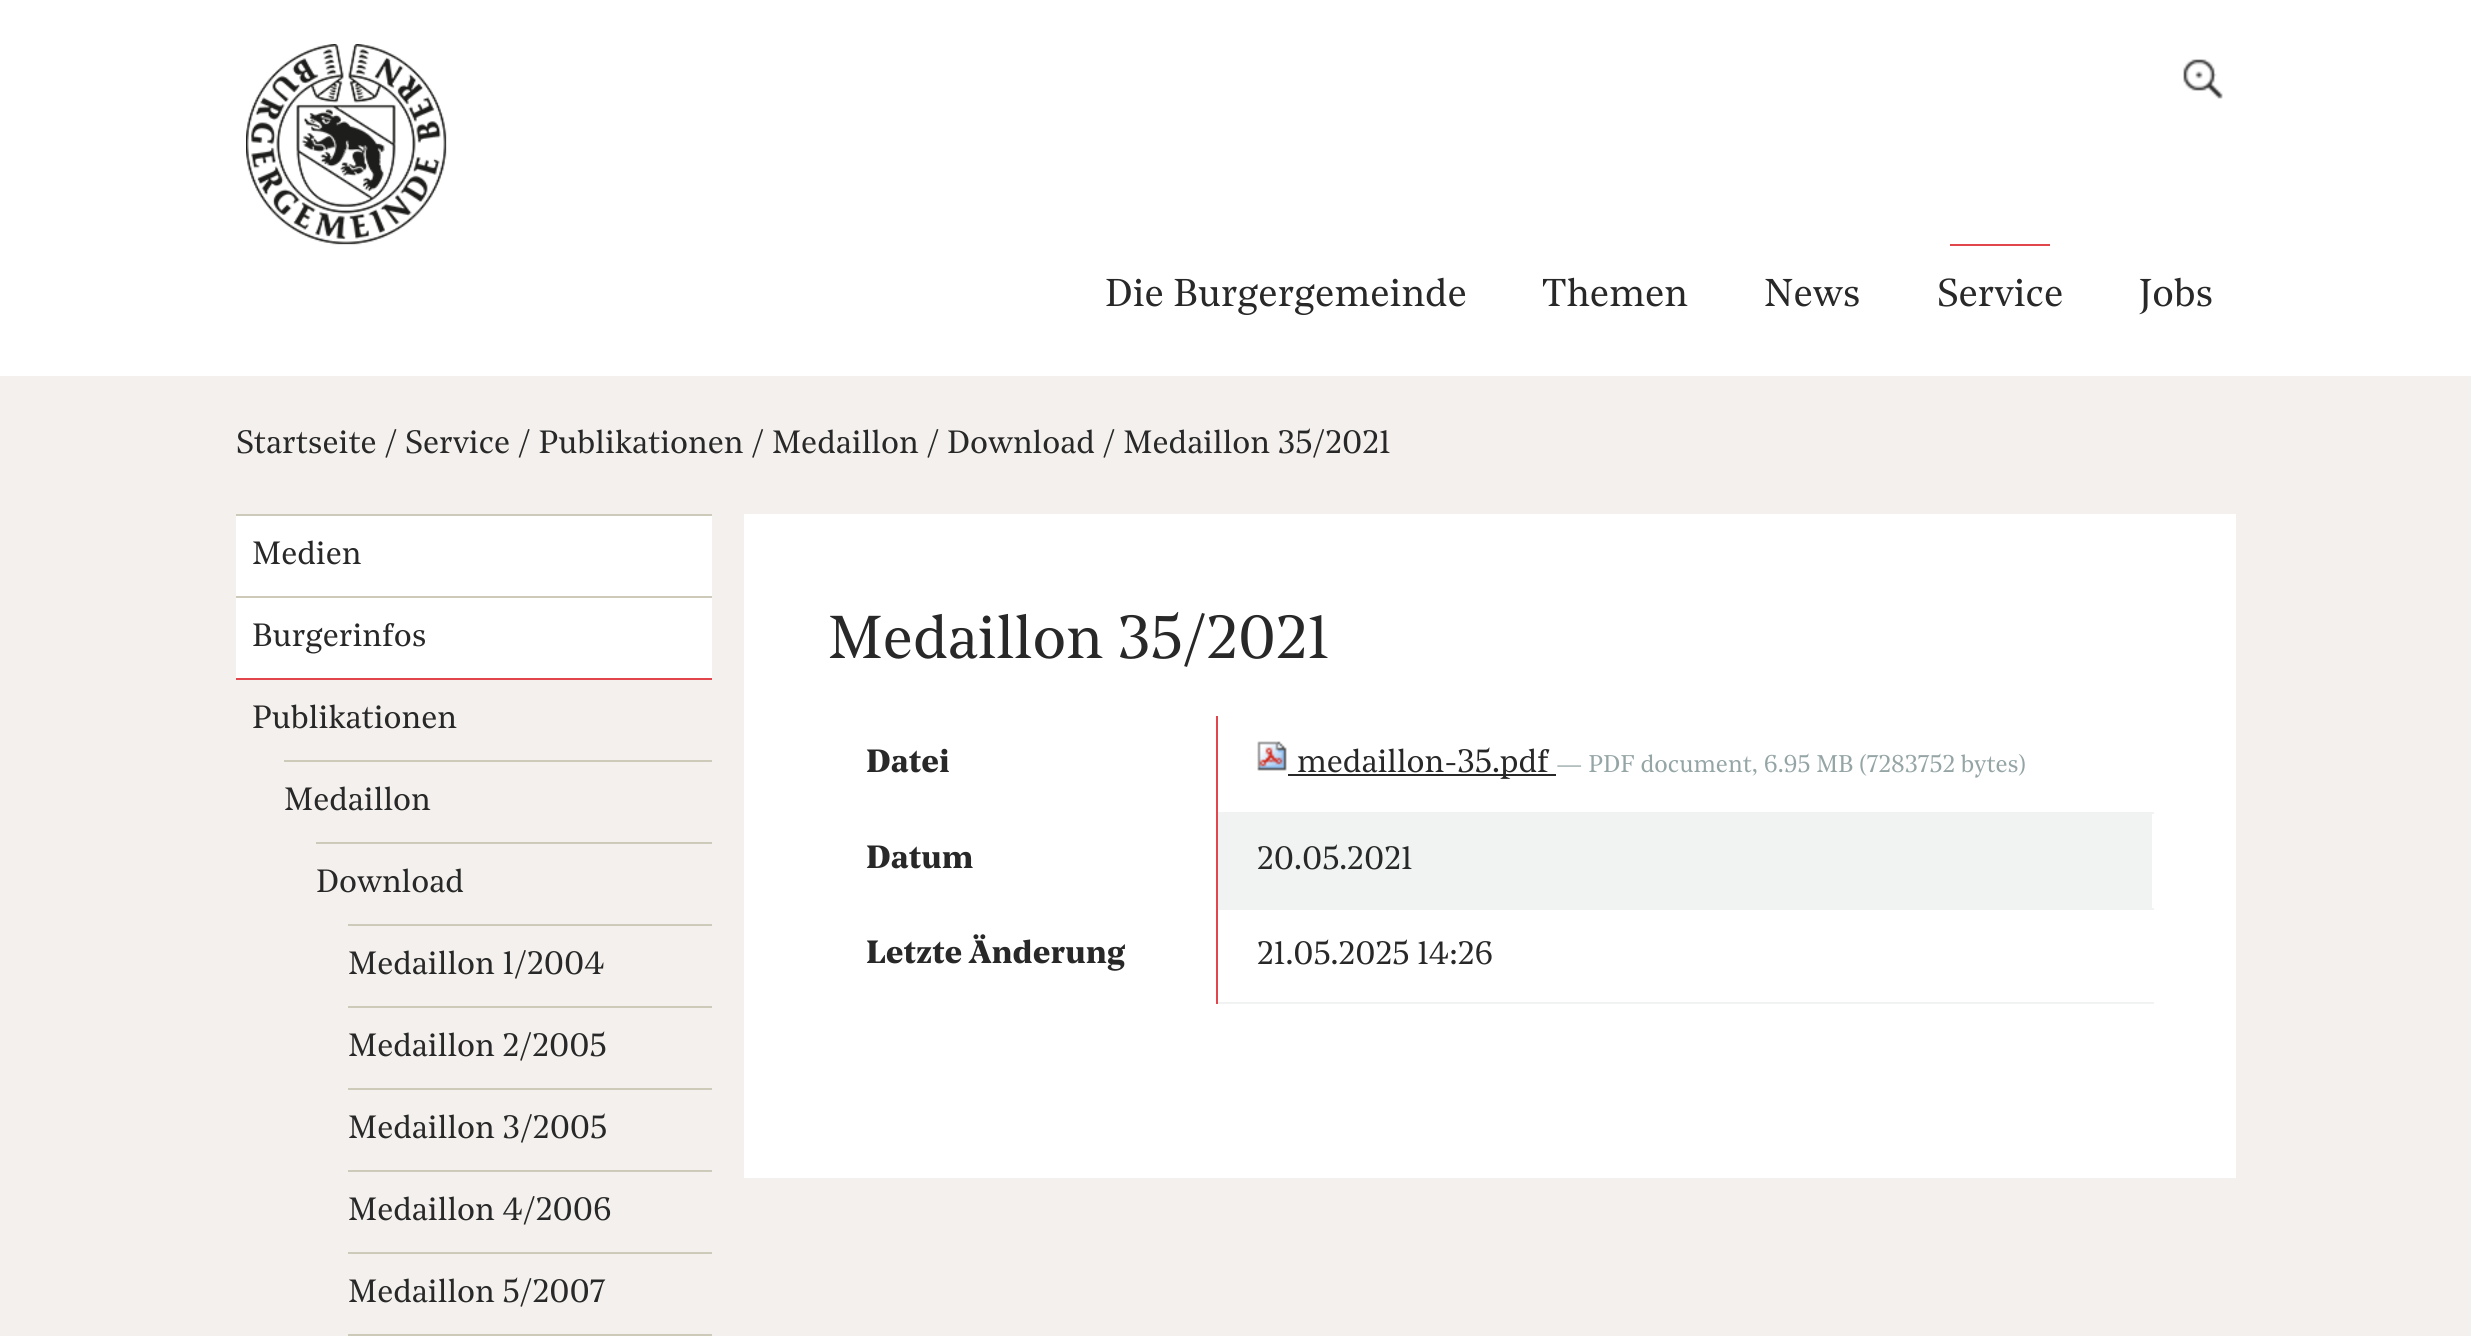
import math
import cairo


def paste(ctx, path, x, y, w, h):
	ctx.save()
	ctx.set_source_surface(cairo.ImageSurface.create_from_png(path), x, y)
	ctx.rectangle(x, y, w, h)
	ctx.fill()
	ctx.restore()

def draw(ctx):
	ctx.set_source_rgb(0.953, 0.941, 0.929)
	ctx.paint()
	ctx.set_source_rgb(1, 1, 1)
	ctx.rectangle(0, 0, 2471, 376)
	ctx.fill()
	paste(ctx, 'media/1.png', 246, 44, 201, 201)
	paste(ctx, 'media/2.png', 2183, 59, 40, 40)
	ctx.select_font_face('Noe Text')
	ctx.set_font_size(38.5)
	ctx.set_source_rgb(0.157, 0.157, 0.157)
	for x, y, s in [
		(1105, 306, 'Die Burgergemeinde'),
		(1542, 306, 'Themen'),
		(1764, 306, 'News'),
	]:
		ctx.move_to(x, y)
		ctx.show_text(s)
	ctx.set_source_rgb(0.89, 0.271, 0.302)
	ctx.rectangle(1950, 244, 100, 2)
	ctx.fill()
	ctx.set_source_rgb(0.157, 0.157, 0.157)
	ctx.move_to(1937, 306)
	ctx.show_text('Service')
	ctx.move_to(2139, 306)
	ctx.show_text('Jobs')
	ctx.set_font_size(32)
	ctx.move_to(236, 453)
	ctx.show_text('Startseite / Service / Publikationen / Medaillon / Download / Medaillon 35/2021')
	ctx.set_source_rgb(1, 1, 1)
	ctx.rectangle(236, 516, 476, 162)
	ctx.fill()
	ctx.set_source_rgb(0.808, 0.792, 0.725)
	ctx.rectangle(236, 514, 476, 2)
	ctx.fill()
	ctx.set_source_rgb(0.157, 0.157, 0.157)
	ctx.move_to(252, 564)
	ctx.show_text('Medien')
	ctx.set_source_rgb(0.808, 0.792, 0.725)
	ctx.rectangle(236, 596, 476, 2)
	ctx.fill()
	ctx.set_source_rgb(0.157, 0.157, 0.157)
	ctx.move_to(252, 646)
	ctx.show_text('Burgerinfos')
	ctx.set_source_rgb(0.89, 0.271, 0.302)
	ctx.rectangle(236, 678, 476, 2)
	ctx.fill()
	ctx.set_source_rgb(0.157, 0.157, 0.157)
	ctx.move_to(252, 728)
	ctx.show_text('Publikationen')
	ctx.set_source_rgb(0.808, 0.792, 0.725)
	ctx.rectangle(284, 760, 428, 2)
	ctx.fill()
	ctx.set_source_rgb(0.157, 0.157, 0.157)
	ctx.move_to(284, 810)
	ctx.show_text('Medaillon')
	ctx.set_source_rgb(0.808, 0.792, 0.725)
	ctx.rectangle(316, 842, 396, 2)
	ctx.fill()
	ctx.set_source_rgb(0.157, 0.157, 0.157)
	ctx.move_to(316, 892)
	ctx.show_text('Download')
	ctx.set_source_rgb(0.808, 0.792, 0.725)
	ctx.rectangle(348, 924, 364, 2)
	ctx.fill()
	ctx.set_source_rgb(0.157, 0.157, 0.157)
	ctx.move_to(348, 974)
	ctx.show_text('Medaillon 1/2004')
	ctx.set_source_rgb(0.808, 0.792, 0.725)
	ctx.rectangle(348, 1006, 364, 2)
	ctx.fill()
	ctx.set_source_rgb(0.157, 0.157, 0.157)
	ctx.move_to(348, 1056)
	ctx.show_text('Medaillon 2/2005')
	ctx.set_source_rgb(0.808, 0.792, 0.725)
	ctx.rectangle(348, 1088, 364, 2)
	ctx.fill()
	ctx.set_source_rgb(0.157, 0.157, 0.157)
	ctx.move_to(348, 1138)
	ctx.show_text('Medaillon 3/2005')
	ctx.set_source_rgb(0.808, 0.792, 0.725)
	ctx.rectangle(348, 1170, 364, 2)
	ctx.fill()
	ctx.set_source_rgb(0.157, 0.157, 0.157)
	ctx.move_to(348, 1220)
	ctx.show_text('Medaillon 4/2006')
	ctx.set_source_rgb(0.808, 0.792, 0.725)
	ctx.rectangle(348, 1252, 364, 2)
	ctx.fill()
	ctx.set_source_rgb(0.157, 0.157, 0.157)
	ctx.move_to(348, 1302)
	ctx.show_text('Medaillon 5/2007')
	ctx.set_source_rgb(0.808, 0.792, 0.725)
	ctx.rectangle(348, 1334, 364, 2)
	ctx.fill()
	ctx.set_source_rgb(1, 1, 1)
	ctx.rectangle(744, 514, 1492, 664)
	ctx.fill()
	ctx.set_font_size(60)
	ctx.set_source_rgb(0.157, 0.157, 0.157)
	ctx.move_to(828, 658)
	ctx.show_text('Medaillon 35/2021')
	ctx.set_source_rgb(0.945, 0.953, 0.953)
	ctx.rectangle(1216, 1002, 938, 2)
	ctx.fill()
	ctx.set_source_rgb(0.89, 0.271, 0.302)
	ctx.rectangle(1216, 908, 2, 96)
	ctx.fill()
	ctx.set_source_rgb(0.945, 0.953, 0.953)
	ctx.rectangle(1216, 908, 938, 2)
	ctx.fill()
	ctx.set_source_rgb(0.89, 0.271, 0.302)
	ctx.rectangle(1216, 812, 2, 98)
	ctx.fill()
	ctx.set_source_rgb(0.945, 0.953, 0.953)
	ctx.rectangle(1216, 812, 938, 2)
	ctx.fill()
	ctx.set_source_rgb(0.89, 0.271, 0.302)
	ctx.rectangle(1216, 716, 2, 98)
	ctx.fill()
	ctx.select_font_face('Noe Text', cairo.FONT_SLANT_NORMAL, cairo.FONT_WEIGHT_BOLD)
	ctx.set_font_size(32)
	ctx.set_source_rgb(0.157, 0.157, 0.157)
	ctx.move_to(866, 772)
	ctx.show_text('Datei')
	paste(ctx, 'media/3.png', 1257, 741, 30, 30)
	ctx.rectangle(1288, 774, 268, 2)
	ctx.fill()
	ctx.select_font_face('Noe Text')
	ctx.move_to(1297, 772)
	ctx.show_text('medaillon-35.pdf')
	ctx.set_font_size(24)
	ctx.set_source_rgb(0.584, 0.647, 0.651)
	ctx.move_to(1556, 772)
	ctx.show_text('— PDF document, 6.95 MB (7283752 bytes)')
	ctx.select_font_face('Noe Text', cairo.FONT_SLANT_NORMAL, cairo.FONT_WEIGHT_BOLD)
	ctx.set_font_size(32)
	ctx.set_source_rgb(0.157, 0.157, 0.157)
	ctx.move_to(866, 868)
	ctx.show_text('Datum')
	ctx.set_source_rgb(0.945, 0.953, 0.953)
	ctx.rectangle(1218, 814, 934, 94)
	ctx.fill()
	ctx.select_font_face('Noe Text')
	ctx.set_source_rgb(0.157, 0.157, 0.157)
	ctx.move_to(1257, 869)
	ctx.show_text('20.05.2021')
	ctx.select_font_face('Noe Text', cairo.FONT_SLANT_NORMAL, cairo.FONT_WEIGHT_BOLD)
	ctx.move_to(866, 963)
	ctx.show_text('Letzte Änderung')
	ctx.select_font_face('Noe Text')
	ctx.move_to(1257, 964)
	ctx.show_text('21.05.2025 14:26')


surface = cairo.ImageSurface(cairo.FORMAT_RGB24, 2471, 1336)
ctx = cairo.Context(surface)
options = cairo.FontOptions()
options.set_hint_metrics(cairo.HINT_METRICS_OFF)
options.set_hint_style(cairo.HINT_STYLE_NONE)
ctx.set_font_options(options)
ctx.set_miter_limit(4)
draw(ctx)
surface.write_to_png('image.png')
